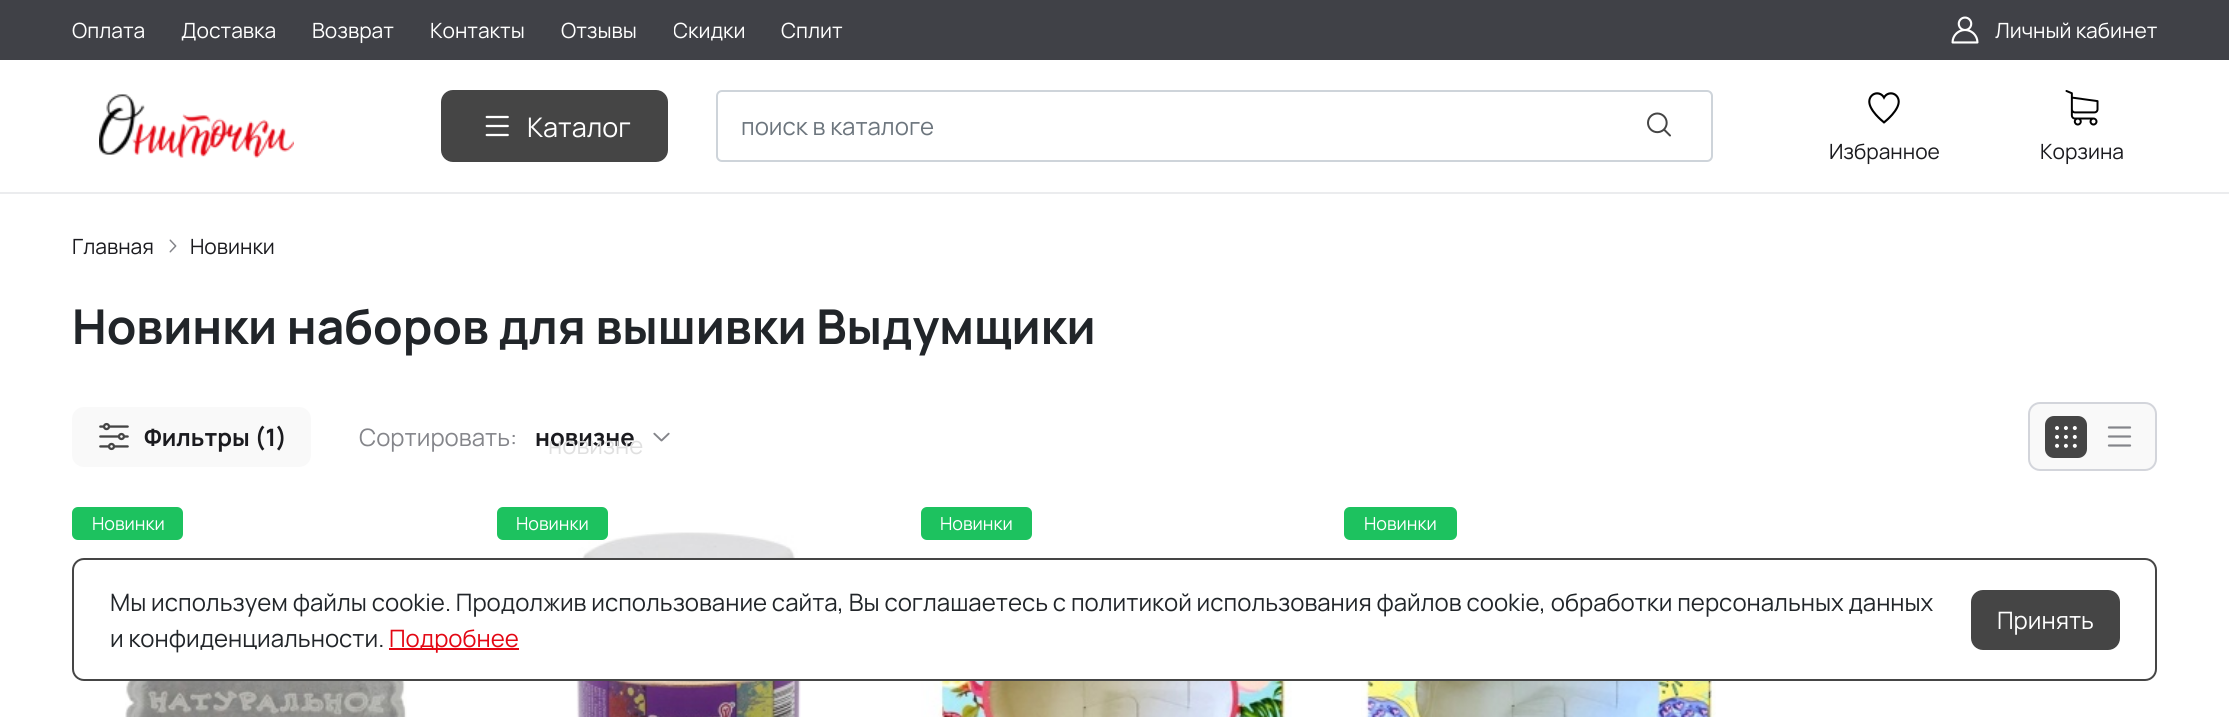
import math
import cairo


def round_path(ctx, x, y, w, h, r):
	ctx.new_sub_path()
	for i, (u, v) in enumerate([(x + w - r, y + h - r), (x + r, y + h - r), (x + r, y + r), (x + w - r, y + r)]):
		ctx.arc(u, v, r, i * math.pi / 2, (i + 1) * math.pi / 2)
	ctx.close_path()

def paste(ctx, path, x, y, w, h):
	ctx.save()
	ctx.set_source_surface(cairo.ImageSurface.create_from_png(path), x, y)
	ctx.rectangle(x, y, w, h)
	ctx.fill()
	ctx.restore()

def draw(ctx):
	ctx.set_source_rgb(1, 1, 1)
	ctx.paint()
	ctx.set_source_rgb(0.251, 0.255, 0.278)
	ctx.rectangle(0, 0, 2229, 60)
	ctx.fill()
	ctx.select_font_face('Manrope')
	ctx.set_font_size(21)
	ctx.set_source_rgb(1, 1, 1)
	for x, y, s in [
		(72, 38, 'Оплата'),
		(181, 38, 'Доставка'),
		(312, 38, 'Возврат'),
		(430, 38, 'Контакты'),
		(561, 38, 'Отзывы'),
	]:
		ctx.move_to(x, y)
		ctx.show_text(s)
	ctx.save()
	ctx.rectangle(674, 15, 72, 32)
	ctx.clip()
	ctx.move_to(673, 38)
	ctx.show_text('Скидки')
	ctx.restore()
	ctx.move_to(781, 38)
	ctx.show_text('Сплит')
	paste(ctx, 'media/1.png', 1951, 16, 28, 28)
	ctx.move_to(1995, 38)
	ctx.show_text('Личный кабинет')
	ctx.set_source_rgb(0.918, 0.922, 0.933)
	ctx.rectangle(0, 192, 2229, 2)
	ctx.fill()
	paste(ctx, 'media/2.png', 99, 94, 195, 64)
	ctx.set_source_rgb(0.271, 0.271, 0.271)
	round_path(ctx, 442, 91, 225, 70, 11)
	ctx.fill_preserve()
	ctx.stroke()
	paste(ctx, 'media/3.png', 485, 115, 24, 22)
	ctx.set_font_size(27)
	ctx.set_source_rgb(1, 1, 1)
	ctx.move_to(527, 137)
	ctx.show_text('Каталог')
	round_path(ctx, 717, 91, 995, 70, 5)
	ctx.set_source_rgb(0.808, 0.831, 0.855)
	ctx.stroke()
	ctx.set_font_size(24)
	ctx.set_source_rgb(0.424, 0.459, 0.49)
	ctx.move_to(741, 135)
	ctx.show_text('поиск в каталоге')
	paste(ctx, 'media/4.png', 1647, 112, 24, 25)
	paste(ctx, 'media/5.png', 1868, 92, 32, 32)
	ctx.set_font_size(21)
	ctx.set_source_rgb(0.106, 0.106, 0.122)
	ctx.move_to(1829, 159)
	ctx.show_text('Избранное')
	paste(ctx, 'media/6.png', 2065, 90, 34, 36)
	ctx.move_to(2040, 159)
	ctx.show_text('Корзина')
	ctx.move_to(72, 254)
	ctx.show_text('Главная')
	paste(ctx, 'media/7.png', 169, 239, 8, 14)
	ctx.move_to(190, 254)
	ctx.show_text('Новинки')
	ctx.select_font_face('Manrope', cairo.FONT_SLANT_NORMAL, cairo.FONT_WEIGHT_BOLD)
	ctx.set_font_size(48)
	ctx.set_source_rgb(0.129, 0.145, 0.161)
	ctx.move_to(72, 344)
	ctx.show_text('Новинки наборов для вышивки Выдумщики')
	ctx.set_source_rgb(0.976, 0.976, 0.976)
	round_path(ctx, 72, 407, 239, 60, 12)
	ctx.fill()
	paste(ctx, 'media/8.png', 99, 422, 30, 29)
	ctx.set_font_size(24)
	ctx.set_source_rgb(0.106, 0.106, 0.122)
	ctx.move_to(144, 446)
	ctx.show_text('Фильтры (1)')
	ctx.select_font_face('Manrope')
	ctx.set_source_rgb(0.518, 0.522, 0.541)
	ctx.move_to(359, 446)
	ctx.show_text('Сортировать:')
	ctx.select_font_face('Manrope', cairo.FONT_SLANT_NORMAL, cairo.FONT_WEIGHT_BOLD)
	ctx.set_source_rgb(0.106, 0.106, 0.122)
	ctx.move_to(535, 446)
	ctx.show_text('новизне')
	paste(ctx, 'media/9.png', 653, 432, 17, 10)
	ctx.select_font_face('Manrope')
	ctx.set_source_rgb(0.878, 0.878, 0.878)
	ctx.move_to(548, 454)
	ctx.show_text('новизне')
	ctx.set_source_rgb(0.976, 0.976, 0.976)
	round_path(ctx, 2029, 403, 127, 67, 11)
	ctx.fill_preserve()
	ctx.set_source_rgb(0.827, 0.835, 0.859)
	ctx.stroke()
	ctx.set_source_rgb(0.271, 0.271, 0.271)
	round_path(ctx, 2045, 416, 42, 42, 9)
	ctx.fill()
	paste(ctx, 'media/10.png', 2055, 426, 22, 22)
	paste(ctx, 'media/11.png', 2107, 426, 25, 21)
	ctx.set_source_rgb(0.114, 0.761, 0.373)
	round_path(ctx, 73, 508, 109, 31, 5)
	ctx.fill_preserve()
	ctx.stroke()
	ctx.set_font_size(18)
	ctx.set_source_rgb(1, 1, 1)
	ctx.move_to(92, 530)
	ctx.show_text('Новинки')
	paste(ctx, 'media/12.png', 125, 681, 282, 36)
	paste(ctx, 'media/13.png', 576, 532, 225, 185)
	ctx.set_source_rgb(0.114, 0.761, 0.373)
	round_path(ctx, 498, 508, 109, 31, 5)
	ctx.fill_preserve()
	ctx.stroke()
	ctx.set_source_rgb(1, 1, 1)
	ctx.move_to(516, 530)
	ctx.show_text('Новинки')
	ctx.set_source_rgb(0.114, 0.761, 0.373)
	round_path(ctx, 922, 508, 109, 31, 5)
	ctx.fill_preserve()
	ctx.stroke()
	ctx.set_source_rgb(1, 1, 1)
	ctx.move_to(940, 530)
	ctx.show_text('Новинки')
	paste(ctx, 'media/14.png', 921, 681, 371, 36)
	ctx.set_source_rgb(0.114, 0.761, 0.373)
	round_path(ctx, 1345, 508, 111, 31, 5)
	ctx.fill_preserve()
	ctx.stroke()
	ctx.set_source_rgb(1, 1, 1)
	ctx.move_to(1364, 530)
	ctx.show_text('Новинки')
	paste(ctx, 'media/15.png', 1361, 681, 355, 36)
	round_path(ctx, 73, 559, 2083, 121, 11)
	ctx.fill_preserve()
	ctx.set_source_rgb(0.271, 0.271, 0.271)
	ctx.stroke()
	ctx.set_font_size(24)
	ctx.set_source_rgb(0.129, 0.145, 0.161)
	ctx.move_to(110, 611)
	ctx.show_text('Мы используем файлы cookie. Продолжив использование сайта, Вы соглашаетесь с политикой использования файлов cookie, обработки персональных данных')
	ctx.move_to(110, 647)
	ctx.show_text('и конфиденциальности.')
	ctx.set_source_rgb(0.89, 0.024, 0.075)
	ctx.rectangle(389, 648, 130, 2)
	ctx.fill()
	ctx.move_to(389, 647)
	ctx.show_text('Подробнее')
	ctx.set_source_rgb(0.271, 0.271, 0.271)
	round_path(ctx, 1972, 591, 147, 58, 11)
	ctx.fill_preserve()
	ctx.stroke()
	ctx.set_source_rgb(1, 1, 1)
	ctx.move_to(1997, 629)
	ctx.show_text('Принять')


surface = cairo.ImageSurface(cairo.FORMAT_RGB24, 2229, 717)
ctx = cairo.Context(surface)
options = cairo.FontOptions()
options.set_hint_metrics(cairo.HINT_METRICS_OFF)
options.set_hint_style(cairo.HINT_STYLE_NONE)
ctx.set_font_options(options)
ctx.set_miter_limit(4)
draw(ctx)
surface.write_to_png('image.png')
